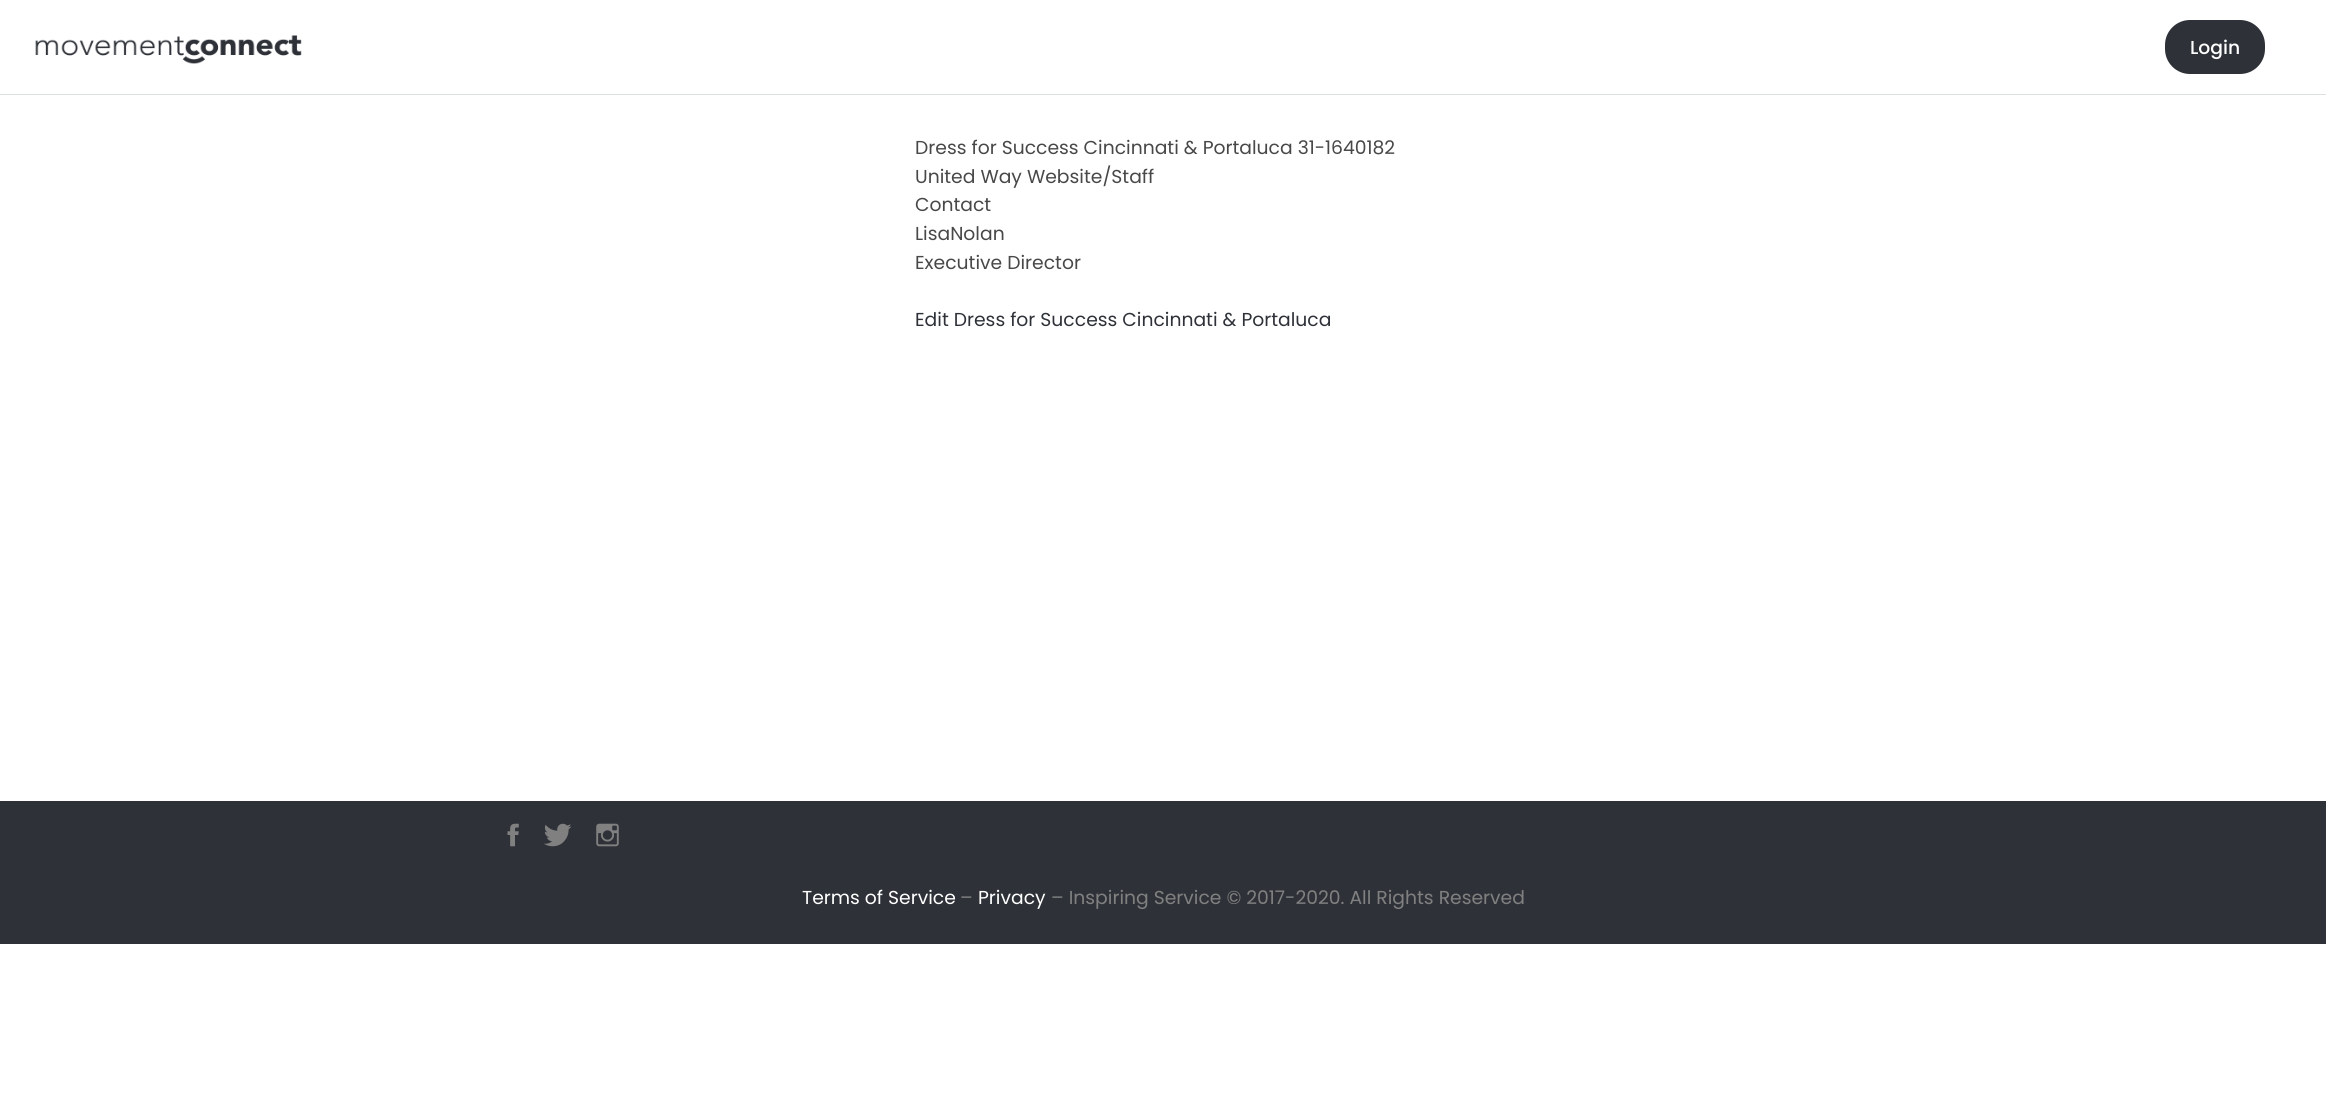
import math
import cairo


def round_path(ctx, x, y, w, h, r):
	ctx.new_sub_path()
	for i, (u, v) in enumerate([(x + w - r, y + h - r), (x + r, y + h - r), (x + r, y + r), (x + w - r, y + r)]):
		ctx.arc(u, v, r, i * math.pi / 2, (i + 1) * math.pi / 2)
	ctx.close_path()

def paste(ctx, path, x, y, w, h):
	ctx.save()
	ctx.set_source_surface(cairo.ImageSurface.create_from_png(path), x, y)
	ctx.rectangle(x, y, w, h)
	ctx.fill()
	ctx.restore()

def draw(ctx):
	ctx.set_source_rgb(1, 1, 1)
	ctx.paint()
	ctx.set_source_rgb(0.863, 0.878, 0.878)
	ctx.rectangle(0, 94, 2326, 1)
	ctx.fill()
	paste(ctx, 'media/1.png', 35, 35, 267, 29)
	ctx.set_source_rgb(0.18, 0.196, 0.22)
	round_path(ctx, 2165, 20, 100, 54, 25)
	ctx.fill()
	ctx.select_font_face('Poppins Medium')
	ctx.set_font_size(18.75)
	ctx.set_source_rgb(1, 1, 1)
	ctx.move_to(2190, 54)
	ctx.show_text('Login')
	ctx.select_font_face('Poppins')
	ctx.set_source_rgb(0.282, 0.282, 0.282)
	for x, y, s in [
		(915, 154, 'Dress for Success Cincinnati & Portaluca 31-1640182'),
		(915, 183, 'United Way Website/Staff'),
		(915, 211, 'Contact'),
		(915, 240, 'LisaNolan'),
		(915, 269, 'Executive Director'),
	]:
		ctx.move_to(x, y)
		ctx.show_text(s)
	ctx.set_source_rgb(0.18, 0.196, 0.22)
	ctx.move_to(915, 326)
	ctx.show_text('Edit Dress for Success Cincinnati & Portaluca')
	ctx.rectangle(0, 801, 2326, 143)
	ctx.fill()
	paste(ctx, 'media/2.png', 507, 823, 12, 24)
	paste(ctx, 'media/3.png', 544, 823, 28, 24)
	paste(ctx, 'media/4.png', 596, 823, 23, 24)
	ctx.set_source_rgb(1, 1, 1)
	ctx.move_to(802, 904)
	ctx.show_text('Terms of Service')
	ctx.set_source_rgb(0.502, 0.502, 0.502)
	ctx.move_to(960, 904)
	ctx.show_text('–')
	ctx.set_source_rgb(1, 1, 1)
	ctx.move_to(978, 904)
	ctx.show_text('Privacy')
	ctx.set_source_rgb(0.502, 0.502, 0.502)
	ctx.move_to(1051, 904)
	ctx.show_text('– Inspiring Service © 2017-2020. All Rights Reserved')


surface = cairo.ImageSurface(cairo.FORMAT_RGB24, 2326, 1107)
ctx = cairo.Context(surface)
options = cairo.FontOptions()
options.set_hint_metrics(cairo.HINT_METRICS_OFF)
options.set_hint_style(cairo.HINT_STYLE_NONE)
ctx.set_font_options(options)
ctx.set_miter_limit(4)
draw(ctx)
surface.write_to_png('image.png')
